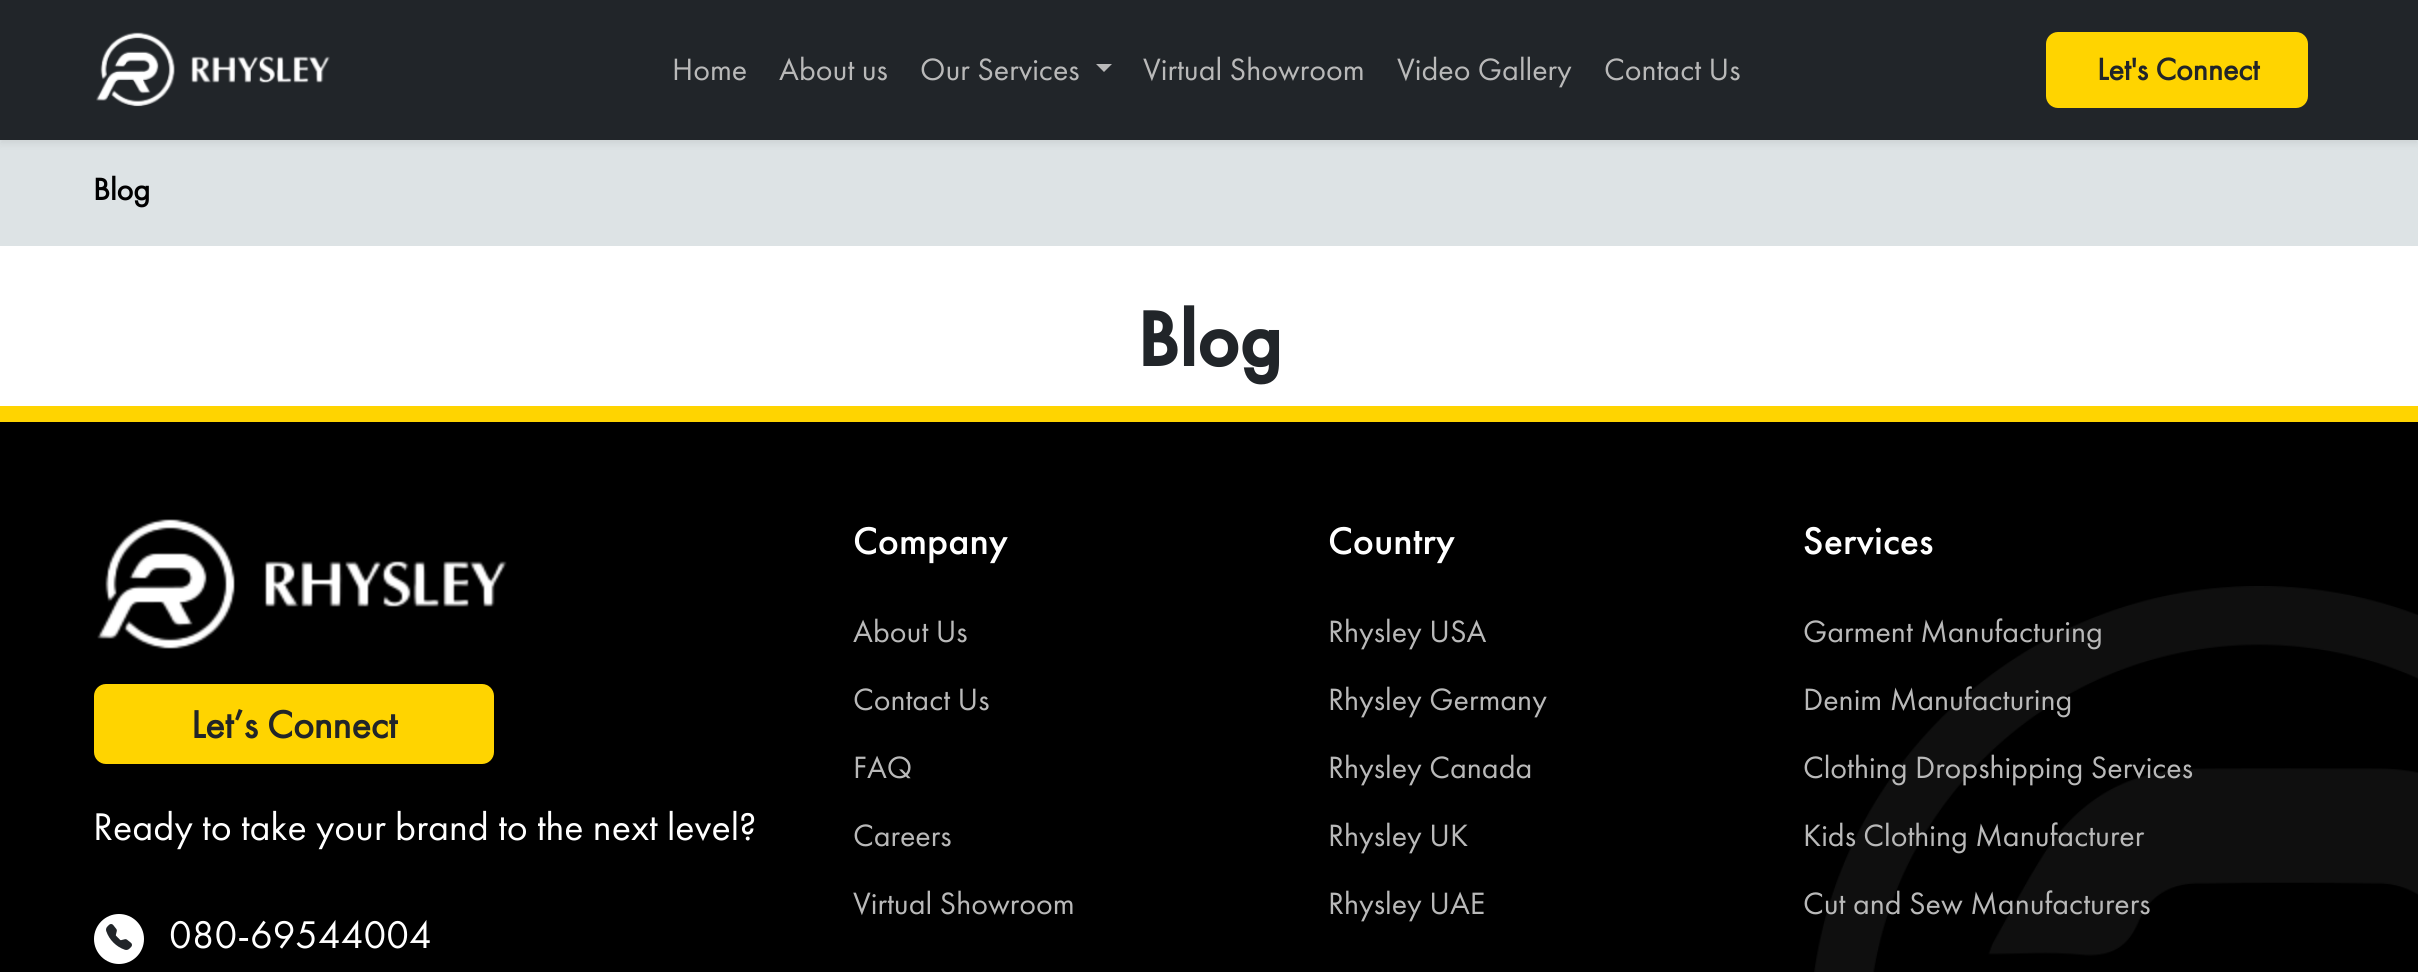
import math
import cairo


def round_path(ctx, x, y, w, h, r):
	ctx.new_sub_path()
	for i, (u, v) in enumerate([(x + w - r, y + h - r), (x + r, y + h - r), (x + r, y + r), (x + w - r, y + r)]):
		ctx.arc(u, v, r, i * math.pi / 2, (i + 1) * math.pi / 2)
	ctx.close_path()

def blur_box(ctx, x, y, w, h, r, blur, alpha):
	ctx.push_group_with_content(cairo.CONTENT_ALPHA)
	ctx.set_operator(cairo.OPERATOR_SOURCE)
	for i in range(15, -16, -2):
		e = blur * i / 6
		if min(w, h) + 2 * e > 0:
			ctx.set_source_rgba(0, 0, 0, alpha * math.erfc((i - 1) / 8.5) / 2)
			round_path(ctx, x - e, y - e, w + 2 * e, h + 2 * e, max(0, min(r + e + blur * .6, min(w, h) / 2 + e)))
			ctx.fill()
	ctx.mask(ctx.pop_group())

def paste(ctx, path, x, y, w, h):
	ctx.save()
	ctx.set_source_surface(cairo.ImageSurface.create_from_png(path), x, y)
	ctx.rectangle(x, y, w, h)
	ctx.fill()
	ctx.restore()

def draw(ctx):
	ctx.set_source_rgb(1, 1, 1)
	ctx.paint()
	ctx.set_source_rgb(0.867, 0.89, 0.898)
	ctx.rectangle(0, 140, 2418, 106)
	ctx.fill()
	ctx.set_source_rgb(0, 0, 0)
	blur_box(ctx, 0, 4, 2418, 140, 0, 4, 0.07)
	ctx.set_source_rgb(0.129, 0.145, 0.161)
	ctx.rectangle(0, 0, 2418, 140)
	ctx.fill()
	paste(ctx, 'media/1.png', 96, 32, 234, 75)
	ctx.select_font_face('Futura PT')
	ctx.set_font_size(32)
	ctx.set_source_rgb(0.725, 0.725, 0.725)
	for x, y, s in [
		(672, 80, 'Home'),
		(779, 80, 'About us'),
		(920, 80, 'Our Services'),
	]:
		ctx.move_to(x, y)
		ctx.show_text(s)
	ctx.new_path()
	ctx.move_to(1096, 64)
	ctx.line_to(1112, 64)
	ctx.line_to(1104, 72)
	ctx.close_path()
	ctx.fill()
	for x, y, s in [
		(1143, 80, 'Virtual Showroom'),
		(1397, 80, 'Video Gallery'),
		(1604, 80, 'Contact Us'),
	]:
		ctx.move_to(x, y)
		ctx.show_text(s)
	ctx.set_source_rgb(1, 0.831, 0)
	round_path(ctx, 2046, 32, 262, 76, 12)
	ctx.fill()
	ctx.select_font_face('Futura PT', cairo.FONT_SLANT_NORMAL, cairo.FONT_WEIGHT_BOLD)
	ctx.set_source_rgb(0.129, 0.145, 0.161)
	ctx.move_to(2097, 80)
	ctx.show_text('Let\'s Connect')
	ctx.set_source_rgb(0, 0, 0)
	ctx.move_to(93, 200)
	ctx.show_text('Blog')
	ctx.select_font_face('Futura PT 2', cairo.FONT_SLANT_NORMAL, cairo.FONT_WEIGHT_BOLD)
	ctx.set_font_size(80)
	ctx.set_source_rgb(0.129, 0.145, 0.161)
	ctx.move_to(1137, 366)
	ctx.show_text('Blog')
	ctx.set_source_rgb(1, 0.831, 0)
	ctx.rectangle(0, 406, 2418, 16)
	ctx.fill()
	ctx.set_source_rgb(0, 0, 0)
	ctx.rectangle(0, 422, 2418, 550)
	ctx.fill()
	paste(ctx, 'media/2.png', 1814, 586, 604, 386)
	paste(ctx, 'media/3.png', 97, 519, 410, 130)
	ctx.set_source_rgb(1, 0.831, 0)
	round_path(ctx, 94, 684, 400, 80, 12)
	ctx.fill()
	ctx.select_font_face('Futura PT', cairo.FONT_SLANT_NORMAL, cairo.FONT_WEIGHT_BOLD)
	ctx.set_font_size(40)
	ctx.set_source_rgb(0.129, 0.145, 0.161)
	ctx.move_to(191, 738)
	ctx.show_text('Let’s Connect')
	ctx.select_font_face('Futura PT')
	ctx.set_source_rgb(1, 1, 1)
	ctx.move_to(93, 840)
	ctx.show_text('Ready to take your brand to the next level?')
	ctx.new_path()
	ctx.arc(119, 939, 25, 0, 2 * math.pi)
	ctx.fill()
	paste(ctx, 'media/4.png', 106, 924, 26, 26)
	ctx.move_to(169, 948)
	ctx.show_text('080-69544004')
	ctx.select_font_face('Futura PT Medium')
	ctx.move_to(853, 554)
	ctx.show_text('Company')
	ctx.select_font_face('Futura PT')
	ctx.set_font_size(32)
	ctx.set_source_rgb(0.725, 0.725, 0.725)
	for x, y, s in [
		(853, 642, 'About Us'),
		(853, 710, 'Contact Us'),
		(853, 778, 'FAQ'),
		(853, 846, 'Careers'),
		(853, 914, 'Virtual Showroom'),
	]:
		ctx.move_to(x, y)
		ctx.show_text(s)
	ctx.select_font_face('Futura PT Medium')
	ctx.set_font_size(40)
	ctx.set_source_rgb(1, 1, 1)
	ctx.move_to(1328, 554)
	ctx.show_text('Country')
	ctx.select_font_face('Futura PT')
	ctx.set_font_size(32)
	ctx.set_source_rgb(0.725, 0.725, 0.725)
	for x, y, s in [
		(1328, 642, 'Rhysley USA'),
		(1328, 710, 'Rhysley Germany'),
		(1328, 778, 'Rhysley Canada'),
		(1328, 846, 'Rhysley UK'),
		(1328, 914, 'Rhysley UAE'),
	]:
		ctx.move_to(x, y)
		ctx.show_text(s)
	ctx.select_font_face('Futura PT Medium')
	ctx.set_font_size(40)
	ctx.set_source_rgb(1, 1, 1)
	ctx.move_to(1803, 554)
	ctx.show_text('Services')
	ctx.select_font_face('Futura PT')
	ctx.set_font_size(32)
	ctx.set_source_rgb(0.725, 0.725, 0.725)
	for x, y, s in [
		(1803, 642, 'Garment Manufacturing'),
		(1803, 710, 'Denim Manufacturing'),
		(1803, 778, 'Clothing Dropshipping Services'),
		(1803, 846, 'Kids Clothing Manufacturer'),
		(1803, 914, 'Cut and Sew Manufacturers'),
	]:
		ctx.move_to(x, y)
		ctx.show_text(s)


surface = cairo.ImageSurface(cairo.FORMAT_RGB24, 2418, 972)
ctx = cairo.Context(surface)
options = cairo.FontOptions()
options.set_hint_metrics(cairo.HINT_METRICS_OFF)
options.set_hint_style(cairo.HINT_STYLE_NONE)
ctx.set_font_options(options)
ctx.set_miter_limit(4)
draw(ctx)
surface.write_to_png('image.png')
